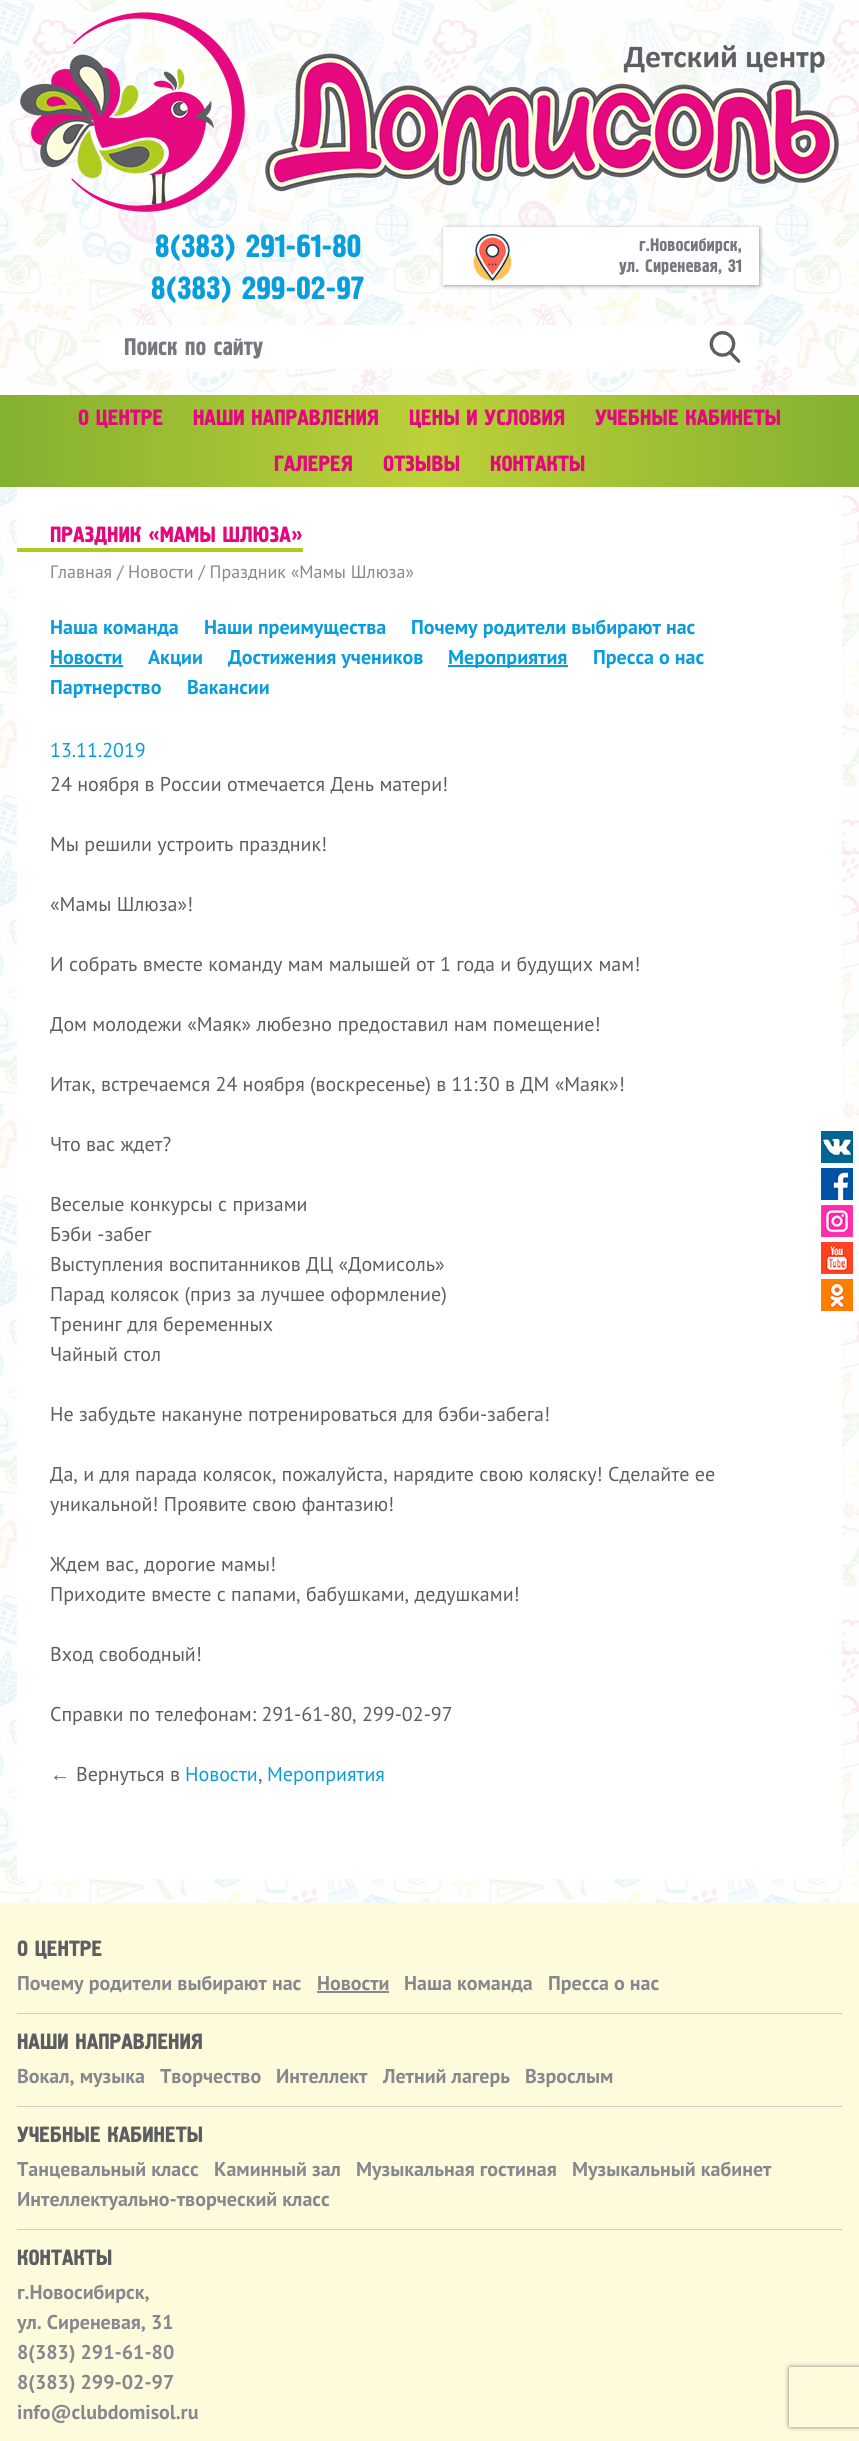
import math
import cairo


def round_path(ctx, x, y, w, h, r):
	ctx.new_sub_path()
	for i, (u, v) in enumerate([(x + w - r, y + h - r), (x + r, y + h - r), (x + r, y + r), (x + w - r, y + r)]):
		ctx.arc(u, v, r, i * math.pi / 2, (i + 1) * math.pi / 2)
	ctx.close_path()

def blur_box(ctx, x, y, w, h, r, blur, alpha):
	ctx.push_group_with_content(cairo.CONTENT_ALPHA)
	ctx.set_operator(cairo.OPERATOR_SOURCE)
	for i in range(15, -16, -2):
		e = blur * i / 6
		if min(w, h) + 2 * e > 0:
			ctx.set_source_rgba(0, 0, 0, alpha * math.erfc((i - 1) / 8.5) / 2)
			round_path(ctx, x - e, y - e, w + 2 * e, h + 2 * e, max(0, min(r + e + blur * .6, min(w, h) / 2 + e)))
			ctx.fill()
	ctx.mask(ctx.pop_group())

def paste(ctx, path, x, y, w, h):
	ctx.save()
	ctx.set_source_surface(cairo.ImageSurface.create_from_png(path), x, y)
	ctx.rectangle(x, y, w, h)
	ctx.fill()
	ctx.restore()

def draw(ctx):
	ctx.set_source_rgb(1, 1, 1)
	ctx.paint()
	paste(ctx, 'media/1.png', 0, 0, 859, 1903)
	paste(ctx, 'media/2.png', 20, 12, 819, 200)
	ctx.select_font_face('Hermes')
	ctx.set_font_size(32)
	ctx.set_source_rgb(0.035, 0.616, 0.867)
	ctx.move_to(155, 257)
	ctx.show_text('8(383) 291-61-80')
	ctx.move_to(151, 299)
	ctx.show_text('8(383) 299-02-97')
	ctx.set_source_rgb(0, 0, 0)
	blur_box(ctx, 444, 228, 316, 58, 0, 2, 0.39)
	ctx.set_source_rgb(1, 1, 1)
	ctx.rectangle(443, 227, 316, 58)
	ctx.fill()
	paste(ctx, 'media/3.png', 473, 234, 39, 47)
	ctx.set_font_size(18)
	ctx.set_source_rgb(0.471, 0.463, 0.494)
	ctx.move_to(639, 251)
	ctx.show_text('г.Новосибирск,')
	ctx.move_to(619, 272)
	ctx.show_text('ул. Сиреневая, 31')
	ctx.set_source_rgb(1, 1, 1)
	round_path(ctx, 100, 325, 659, 44, 10)
	ctx.fill()
	ctx.set_font_size(24)
	ctx.set_source_rgb(0.471, 0.463, 0.494)
	ctx.move_to(124, 355)
	ctx.show_text('Поиск по сайту')
	paste(ctx, 'media/4.png', 709, 331, 32, 32)
	gradient = cairo.LinearGradient(0, 441, 859, 441)
	gradient.add_color_stop_rgba(0, 0.518, 0.694, 0.188, 1)
	gradient.add_color_stop_rgba(0.5, 0.737, 0.816, 0.224, 1)
	gradient.add_color_stop_rgba(1, 0.518, 0.694, 0.188, 1)
	ctx.set_source(gradient)
	ctx.rectangle(0, 395, 859, 92)
	ctx.fill()
	ctx.set_font_size(22)
	ctx.set_source_rgb(0.894, 0.035, 0.49)
	for x, y, s in [
		(78, 425, 'О ЦЕНТРЕ'),
		(193, 425, 'НАШИ НАПРАВЛЕНИЯ'),
		(409, 425, 'ЦЕНЫ И УСЛОВИЯ'),
		(595, 425, 'УЧЕБНЫЕ КАБИНЕТЫ'),
		(274, 471, 'ГАЛЕРЕЯ'),
		(383, 471, 'ОТЗЫВЫ'),
		(490, 471, 'КОНТАКТЫ'),
	]:
		ctx.move_to(x, y)
		ctx.show_text(s)
	ctx.set_source_rgb(1, 1, 1)
	ctx.rectangle(17, 487, 825, 1392)
	ctx.fill()
	ctx.set_source_rgb(0.894, 0.035, 0.49)
	ctx.move_to(50, 542)
	ctx.show_text('ПРАЗДНИК «МАМЫ ШЛЮЗА»')
	ctx.set_source_rgb(0.69, 0.796, 0.118)
	ctx.rectangle(17, 548, 286, 4)
	ctx.fill()
	ctx.select_font_face('PT Sans')
	ctx.set_font_size(18)
	ctx.set_source_rgb(0.529, 0.533, 0.561)
	ctx.move_to(50, 578)
	ctx.show_text('Главная / Новости / Праздник «Мамы Шлюза»')
	ctx.select_font_face('PT Sans', cairo.FONT_SLANT_NORMAL, cairo.FONT_WEIGHT_BOLD)
	ctx.set_font_size(20)
	ctx.set_source_rgb(0.035, 0.616, 0.867)
	for x, y, s in [
		(50, 634, 'Наша команда'),
		(204, 634, 'Наши преимущества'),
		(411, 634, 'Почему родители выбирают нас'),
		(50, 664, 'Новости'),
	]:
		ctx.move_to(x, y)
		ctx.show_text(s)
	ctx.rectangle(50, 665, 73, 2)
	ctx.fill()
	ctx.move_to(148, 664)
	ctx.show_text('Акции')
	ctx.move_to(228, 664)
	ctx.show_text('Достижения учеников')
	ctx.rectangle(448, 665, 120, 2)
	ctx.fill()
	for x, y, s in [
		(448, 664, 'Мероприятия'),
		(593, 664, 'Пресса о нас'),
		(50, 694, 'Партнерство'),
		(187, 694, 'Вакансии'),
	]:
		ctx.move_to(x, y)
		ctx.show_text(s)
	ctx.select_font_face('PT Sans')
	ctx.move_to(50, 757)
	ctx.show_text('13.11.2019')
	ctx.set_source_rgb(0.365, 0.369, 0.384)
	for x, y, s in [
		(50, 791, '24 ноября в России отмечается День матери!'),
		(50, 851, 'Мы решили устроить праздник!'),
		(50, 911, '«Мамы Шлюза»!'),
		(50, 971, 'И собрать вместе команду мам малышей от 1 года и будущих мам!'),
		(50, 1031, 'Дом молодежи «Маяк» любезно предоставил нам помещение!'),
		(50, 1091, 'Итак, встречаемся 24 ноября (воскресенье) в 11:30 в ДМ «Маяк»!'),
		(50, 1151, 'Что вас ждет?'),
		(50, 1211, 'Веселые конкурсы с призами'),
		(50, 1241, 'Бэби -забег'),
		(50, 1271, 'Выступления воспитанников ДЦ «Домисоль»'),
		(50, 1301, 'Парад колясок (приз за лучшее оформление)'),
		(50, 1331, 'Тренинг для беременных'),
		(50, 1361, 'Чайный стол'),
		(50, 1421, 'Не забудьте накануне потренироваться для бэби-забега!'),
		(50, 1481, 'Да, и для парада колясок, пожалуйста, нарядите свою коляску! Сделайте ее'),
		(50, 1511, 'уникальной! Проявите свою фантазию!'),
		(50, 1571, 'Ждем вас, дорогие мамы!'),
		(50, 1601, 'Приходите вместе с папами, бабушками, дедушками!'),
		(50, 1661, 'Вход свободный!'),
		(50, 1721, 'Справки по телефонам: 291-61-80, 299-02-97'),
	]:
		ctx.move_to(x, y)
		ctx.show_text(s)
	ctx.select_font_face('Liberation Sans')
	ctx.move_to(50, 1781)
	ctx.show_text('←')
	ctx.select_font_face('PT Sans')
	ctx.move_to(76, 1781)
	ctx.show_text('Вернуться в')
	ctx.set_source_rgb(0.035, 0.616, 0.867)
	ctx.move_to(185, 1781)
	ctx.show_text('Новости')
	ctx.move_to(267, 1781)
	ctx.show_text('Мероприятия')
	ctx.set_source_rgb(0.365, 0.369, 0.384)
	ctx.move_to(258, 1781)
	ctx.show_text(',')
	ctx.set_source_rgba(1, 1, 1, 0.7)
	ctx.rectangle(842, 1126, 17, 190)
	ctx.fill()
	paste(ctx, 'media/5.png', 821, 1131, 32, 32)
	paste(ctx, 'media/6.png', 821, 1168, 32, 32)
	paste(ctx, 'media/7.png', 821, 1205, 32, 32)
	paste(ctx, 'media/8.png', 821, 1242, 32, 32)
	paste(ctx, 'media/9.png', 821, 1279, 32, 32)
	ctx.set_source_rgb(0.996, 0.984, 0.863)
	ctx.rectangle(0, 1903, 859, 538)
	ctx.fill()
	ctx.set_source_rgb(0.808, 0.804, 0.733)
	ctx.rectangle(17, 2013, 825, 1)
	ctx.fill()
	ctx.select_font_face('Hermes')
	ctx.set_font_size(22)
	ctx.set_source_rgb(0.365, 0.369, 0.384)
	ctx.move_to(17, 1956)
	ctx.show_text('О ЦЕНТРЕ')
	ctx.select_font_face('PT Sans', cairo.FONT_SLANT_NORMAL, cairo.FONT_WEIGHT_BOLD)
	ctx.set_font_size(20)
	ctx.set_source_rgb(0.529, 0.533, 0.561)
	ctx.move_to(17, 1990)
	ctx.show_text('Почему родители выбирают нас')
	ctx.move_to(317, 1990)
	ctx.show_text('Новости')
	ctx.rectangle(317, 1991, 72, 2)
	ctx.fill()
	ctx.move_to(404, 1990)
	ctx.show_text('Наша команда')
	ctx.move_to(548, 1990)
	ctx.show_text('Пресса о нас')
	ctx.set_source_rgb(0.808, 0.804, 0.733)
	ctx.rectangle(17, 2106, 825, 1)
	ctx.fill()
	ctx.select_font_face('Hermes')
	ctx.set_font_size(22)
	ctx.set_source_rgb(0.365, 0.369, 0.384)
	ctx.move_to(17, 2049)
	ctx.show_text('НАШИ НАПРАВЛЕНИЯ')
	ctx.select_font_face('PT Sans', cairo.FONT_SLANT_NORMAL, cairo.FONT_WEIGHT_BOLD)
	ctx.set_font_size(20)
	ctx.set_source_rgb(0.529, 0.533, 0.561)
	for x, y, s in [
		(17, 2083, 'Вокал, музыка'),
		(160, 2083, 'Творчество'),
		(276, 2083, 'Интеллект'),
		(383, 2083, 'Летний лагерь'),
		(525, 2083, 'Взрослым'),
	]:
		ctx.move_to(x, y)
		ctx.show_text(s)
	ctx.set_source_rgb(0.808, 0.804, 0.733)
	ctx.rectangle(17, 2229, 825, 1)
	ctx.fill()
	ctx.select_font_face('Hermes')
	ctx.set_font_size(22)
	ctx.set_source_rgb(0.365, 0.369, 0.384)
	ctx.move_to(17, 2142)
	ctx.show_text('УЧЕБНЫЕ КАБИНЕТЫ')
	ctx.select_font_face('PT Sans', cairo.FONT_SLANT_NORMAL, cairo.FONT_WEIGHT_BOLD)
	ctx.set_font_size(20)
	ctx.set_source_rgb(0.529, 0.533, 0.561)
	for x, y, s in [
		(17, 2176, 'Танцевальный класс'),
		(214, 2176, 'Каминный зал'),
		(356, 2176, 'Музыкальная гостиная'),
		(572, 2176, 'Музыкальный кабинет'),
		(17, 2206, 'Интеллектуально-творческий класс'),
	]:
		ctx.move_to(x, y)
		ctx.show_text(s)
	ctx.select_font_face('Hermes')
	ctx.set_font_size(22)
	ctx.set_source_rgb(0.365, 0.369, 0.384)
	ctx.move_to(17, 2265)
	ctx.show_text('КОНТАКТЫ')
	ctx.select_font_face('PT Sans', cairo.FONT_SLANT_NORMAL, cairo.FONT_WEIGHT_BOLD)
	ctx.set_font_size(20)
	ctx.set_source_rgb(0.529, 0.533, 0.561)
	for x, y, s in [
		(17, 2299, 'г.Новосибирск,'),
		(17, 2329, 'ул. Сиреневая, 31'),
		(17, 2359, '8(383) 291-61-80'),
		(17, 2389, '8(383) 299-02-97'),
		(17, 2419, 'info@clubdomisol.ru'),
	]:
		ctx.move_to(x, y)
		ctx.show_text(s)
	ctx.save()
	ctx.set_fill_rule(cairo.FILL_RULE_EVEN_ODD)
	ctx.new_path()
	ctx.move_to(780, 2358)
	ctx.line_to(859, 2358)
	ctx.line_to(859, 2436)
	ctx.line_to(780, 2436)
	ctx.close_path()
	ctx.move_to(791, 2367)
	ctx.line_to(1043, 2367)
	ctx.curve_to(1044, 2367, 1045, 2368, 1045, 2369)
	ctx.line_to(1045, 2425)
	ctx.curve_to(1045, 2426, 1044, 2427, 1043, 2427)
	ctx.line_to(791, 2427)
	ctx.curve_to(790, 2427, 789, 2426, 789, 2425)
	ctx.line_to(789, 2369)
	ctx.curve_to(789, 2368, 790, 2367, 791, 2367)
	ctx.close_path()
	ctx.clip()
	ctx.set_source_rgb(0.502, 0.502, 0.502)
	blur_box(ctx, 789, 2367, 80, 60, 2, 2.5, 1)
	ctx.restore()


surface = cairo.ImageSurface(cairo.FORMAT_RGB24, 859, 2441)
ctx = cairo.Context(surface)
options = cairo.FontOptions()
options.set_hint_metrics(cairo.HINT_METRICS_OFF)
options.set_hint_style(cairo.HINT_STYLE_NONE)
ctx.set_font_options(options)
ctx.set_miter_limit(4)
draw(ctx)
surface.write_to_png('image.png')
